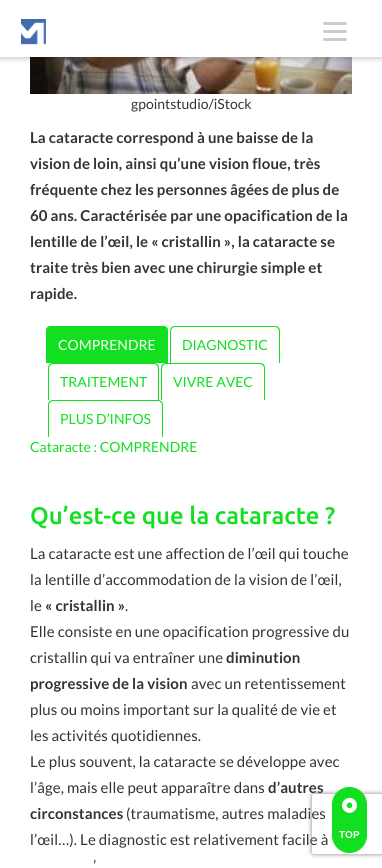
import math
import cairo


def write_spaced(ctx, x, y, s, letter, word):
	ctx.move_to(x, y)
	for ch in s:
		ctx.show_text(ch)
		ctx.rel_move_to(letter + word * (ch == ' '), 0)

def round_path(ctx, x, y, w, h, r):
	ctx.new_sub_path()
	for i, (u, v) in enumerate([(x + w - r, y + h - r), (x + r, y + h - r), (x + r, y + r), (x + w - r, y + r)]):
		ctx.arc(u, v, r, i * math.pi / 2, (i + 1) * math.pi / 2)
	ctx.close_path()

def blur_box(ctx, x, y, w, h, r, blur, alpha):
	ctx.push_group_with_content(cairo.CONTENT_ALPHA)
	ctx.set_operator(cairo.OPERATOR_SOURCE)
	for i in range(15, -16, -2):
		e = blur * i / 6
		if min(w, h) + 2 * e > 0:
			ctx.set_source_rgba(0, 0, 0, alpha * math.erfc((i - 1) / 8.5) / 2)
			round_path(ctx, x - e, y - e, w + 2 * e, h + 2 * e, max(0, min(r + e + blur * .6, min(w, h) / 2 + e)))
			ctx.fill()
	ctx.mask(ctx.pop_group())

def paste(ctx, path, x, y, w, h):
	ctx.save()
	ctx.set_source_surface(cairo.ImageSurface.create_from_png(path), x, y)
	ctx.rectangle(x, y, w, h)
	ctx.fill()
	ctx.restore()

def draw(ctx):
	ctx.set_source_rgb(1, 1, 1)
	ctx.paint()
	paste(ctx, 'media/2.png', 30, 57, 322, 37)
	ctx.set_source_rgb(0, 0, 0)
	blur_box(ctx, 0, 2, 382, 57, 0, 2.5, 0.2)
	ctx.set_source_rgb(1, 1, 1)
	ctx.rectangle(0, 0, 382, 57)
	ctx.fill()
	paste(ctx, 'media/1.png', 21, 19, 25, 26)
	ctx.set_source_rgb(0.8, 0.8, 0.8)
	round_path(ctx, 323, 22, 24, 3, 1.5)
	ctx.fill()
	round_path(ctx, 323, 30, 24, 3, 1.5)
	ctx.fill()
	round_path(ctx, 323, 38, 24, 3, 1.5)
	ctx.fill()
	ctx.select_font_face('Lato')
	ctx.set_font_size(14)
	ctx.set_source_rgb(0.2, 0.2, 0.2)
	ctx.move_to(131, 109)
	ctx.show_text('gpointstudio/iStock')
	ctx.select_font_face('Lato', cairo.FONT_SLANT_NORMAL, cairo.FONT_WEIGHT_BOLD)
	ctx.set_font_size(15)
	for x, y, s in [
		(30, 143, 'La cataracte correspond à une baisse de la'),
		(30, 169, 'vision de loin, ainsi qu’une vision floue, très'),
		(30, 195, 'fréquente chez les personnes âgées de plus de'),
		(30, 221, '60 ans. Caractérisée par une opacification de la'),
		(30, 247, 'lentille de l’œil, le « cristallin », la cataracte se'),
		(30, 273, 'traite très bien avec une chirurgie simple et'),
		(30, 299, 'rapide.'),
	]:
		write_spaced(ctx, x, y, s, 0.1, 0)
	ctx.set_source_rgb(0.067, 0.875, 0.122)
	ctx.new_path()
	ctx.move_to(51, 326)
	ctx.line_to(163, 326)
	ctx.curve_to(166, 326, 168, 328, 168, 331)
	ctx.line_to(168, 363)
	ctx.line_to(46, 363)
	ctx.line_to(46, 331)
	ctx.curve_to(46, 328, 48, 326, 51, 326)
	ctx.close_path()
	ctx.fill()
	ctx.set_fill_rule(cairo.FILL_RULE_EVEN_ODD)
	ctx.new_path()
	ctx.move_to(51, 326)
	ctx.line_to(163, 326)
	ctx.curve_to(166, 326, 168, 328, 168, 331)
	ctx.line_to(168, 363)
	ctx.line_to(46, 363)
	ctx.line_to(46, 331)
	ctx.curve_to(46, 328, 48, 326, 51, 326)
	ctx.close_path()
	ctx.move_to(51, 327)
	ctx.line_to(163, 327)
	ctx.curve_to(165, 327, 167, 329, 167, 331)
	ctx.line_to(167, 363)
	ctx.line_to(47, 363)
	ctx.line_to(47, 331)
	ctx.curve_to(47, 329, 49, 327, 51, 327)
	ctx.close_path()
	ctx.fill()
	ctx.select_font_face('Lato')
	ctx.set_font_size(14)
	ctx.set_source_rgb(1, 1, 1)
	ctx.move_to(58, 350)
	ctx.show_text('COMPRENDRE')
	ctx.set_source_rgb(0.067, 0.875, 0.122)
	ctx.new_path()
	ctx.move_to(175, 326)
	ctx.line_to(275, 326)
	ctx.curve_to(278, 326, 280, 328, 280, 331)
	ctx.line_to(280, 363)
	ctx.line_to(170, 363)
	ctx.line_to(170, 331)
	ctx.curve_to(170, 328, 172, 326, 175, 326)
	ctx.close_path()
	ctx.move_to(175, 327)
	ctx.line_to(275, 327)
	ctx.curve_to(277, 327, 279, 329, 279, 331)
	ctx.line_to(279, 363)
	ctx.line_to(171, 363)
	ctx.line_to(171, 331)
	ctx.curve_to(171, 329, 173, 327, 175, 327)
	ctx.close_path()
	ctx.fill()
	ctx.move_to(182, 350)
	ctx.show_text('DIAGNOSTIC')
	ctx.new_path()
	ctx.move_to(53, 363)
	ctx.line_to(154, 363)
	ctx.curve_to(157, 363, 159, 365, 159, 368)
	ctx.line_to(159, 400)
	ctx.line_to(48, 400)
	ctx.line_to(48, 368)
	ctx.curve_to(48, 365, 50, 363, 53, 363)
	ctx.close_path()
	ctx.move_to(53, 364)
	ctx.line_to(154, 364)
	ctx.curve_to(156, 364, 158, 366, 158, 368)
	ctx.line_to(158, 400)
	ctx.line_to(49, 400)
	ctx.line_to(49, 368)
	ctx.curve_to(49, 366, 51, 364, 53, 364)
	ctx.close_path()
	ctx.fill()
	ctx.move_to(60, 387)
	ctx.show_text('TRAITEMENT')
	ctx.new_path()
	ctx.move_to(166, 363)
	ctx.line_to(260, 363)
	ctx.curve_to(263, 363, 265, 365, 265, 368)
	ctx.line_to(265, 400)
	ctx.line_to(161, 400)
	ctx.line_to(161, 368)
	ctx.curve_to(161, 365, 163, 363, 166, 363)
	ctx.close_path()
	ctx.move_to(166, 364)
	ctx.line_to(260, 364)
	ctx.curve_to(262, 364, 264, 366, 264, 368)
	ctx.line_to(264, 400)
	ctx.line_to(162, 400)
	ctx.line_to(162, 368)
	ctx.curve_to(162, 366, 164, 364, 166, 364)
	ctx.close_path()
	ctx.fill()
	ctx.move_to(173, 387)
	ctx.show_text('VIVRE AVEC')
	ctx.new_path()
	ctx.move_to(53, 400)
	ctx.line_to(158, 400)
	ctx.curve_to(161, 400, 163, 402, 163, 405)
	ctx.line_to(163, 437)
	ctx.line_to(48, 437)
	ctx.line_to(48, 405)
	ctx.curve_to(48, 402, 50, 400, 53, 400)
	ctx.close_path()
	ctx.move_to(53, 401)
	ctx.line_to(158, 401)
	ctx.curve_to(160, 401, 162, 403, 162, 405)
	ctx.line_to(162, 437)
	ctx.line_to(49, 437)
	ctx.line_to(49, 405)
	ctx.curve_to(49, 403, 51, 401, 53, 401)
	ctx.close_path()
	ctx.fill()
	ctx.move_to(60, 424)
	ctx.show_text('PLUS D’INFOS')
	ctx.move_to(30, 452)
	ctx.show_text('Cataracte : COMPRENDRE')
	ctx.select_font_face('Ubuntu Medium')
	ctx.set_font_size(24)
	ctx.move_to(30, 524)
	ctx.show_text('Qu’est-ce que la cataracte ?')
	ctx.select_font_face('Lato')
	ctx.set_font_size(15)
	ctx.set_source_rgb(0.2, 0.2, 0.2)
	for x, y, s in [
		(30, 559, 'La cataracte est une affection de l’œil qui touche'),
		(30, 585, 'la lentille d’accommodation de la vision de l’œil,'),
		(30, 611, 'le'),
	]:
		write_spaced(ctx, x, y, s, 0.1, 0)
	ctx.select_font_face('Lato', cairo.FONT_SLANT_NORMAL, cairo.FONT_WEIGHT_BOLD)
	write_spaced(ctx, 45, 611, '« cristallin »', 0.1, 0)
	ctx.select_font_face('Lato')
	for x, y, s in [
		(125, 611, '.'),
		(30, 637, 'Elle consiste en une opacification progressive du'),
		(30, 663, 'cristallin qui va entraîner une'),
	]:
		write_spaced(ctx, x, y, s, 0.1, 0)
	ctx.select_font_face('Lato', cairo.FONT_SLANT_NORMAL, cairo.FONT_WEIGHT_BOLD)
	write_spaced(ctx, 226, 663, 'diminution', 0.1, 0)
	write_spaced(ctx, 30, 689, 'progressive de la vision', 0.1, 0)
	ctx.select_font_face('Lato')
	for x, y, s in [
		(191, 689, 'avec un retentissement'),
		(30, 715, 'plus ou moins important sur la qualité de vie et'),
		(30, 741, 'les activités quotidiennes.'),
		(30, 767, 'Le plus souvent, la cataracte se développe avec'),
		(30, 793, 'l’âge, mais elle peut apparaître dans'),
	]:
		write_spaced(ctx, x, y, s, 0.1, 0)
	ctx.select_font_face('Lato', cairo.FONT_SLANT_NORMAL, cairo.FONT_WEIGHT_BOLD)
	write_spaced(ctx, 268, 793, 'd’autres', 0.1, 0)
	write_spaced(ctx, 30, 819, 'circonstances', 0.1, 0)
	ctx.select_font_face('Lato')
	for x, y, s in [
		(126, 819, '(traumatisme, autres maladies'),
		(30, 845, 'l’œil…). Le diagnostic est relativement facile à'),
		(93, 871, '’'),
	]:
		write_spaced(ctx, x, y, s, 0.1, 0)
	ctx.save()
	ctx.new_path()
	ctx.move_to(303, 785)
	ctx.line_to(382, 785)
	ctx.line_to(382, 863)
	ctx.line_to(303, 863)
	ctx.close_path()
	ctx.move_to(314, 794)
	ctx.line_to(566, 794)
	ctx.curve_to(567, 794, 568, 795, 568, 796)
	ctx.line_to(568, 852)
	ctx.curve_to(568, 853, 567, 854, 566, 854)
	ctx.line_to(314, 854)
	ctx.curve_to(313, 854, 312, 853, 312, 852)
	ctx.line_to(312, 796)
	ctx.curve_to(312, 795, 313, 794, 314, 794)
	ctx.close_path()
	ctx.clip()
	ctx.set_source_rgb(0.502, 0.502, 0.502)
	blur_box(ctx, 312, 794, 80, 60, 2, 2.5, 1)
	ctx.restore()
	ctx.set_source_rgb(0.067, 0.875, 0.122)
	round_path(ctx, 332.5, 787.5, 34, 65, 17)
	ctx.fill_preserve()
	ctx.set_line_width(1)
	ctx.stroke()
	paste(ctx, 'media/3.png', 342, 797, 15, 16)
	ctx.select_font_face('Liberation Sans', cairo.FONT_SLANT_NORMAL, cairo.FONT_WEIGHT_BOLD)
	ctx.set_font_size(10)
	ctx.set_source_rgb(1, 1, 1)
	ctx.move_to(339, 838)
	ctx.show_text('TOP')


surface = cairo.ImageSurface(cairo.FORMAT_RGB24, 382, 868)
ctx = cairo.Context(surface)
options = cairo.FontOptions()
options.set_hint_metrics(cairo.HINT_METRICS_OFF)
options.set_hint_style(cairo.HINT_STYLE_NONE)
ctx.set_font_options(options)
ctx.set_miter_limit(4)
draw(ctx)
surface.write_to_png('image.png')
